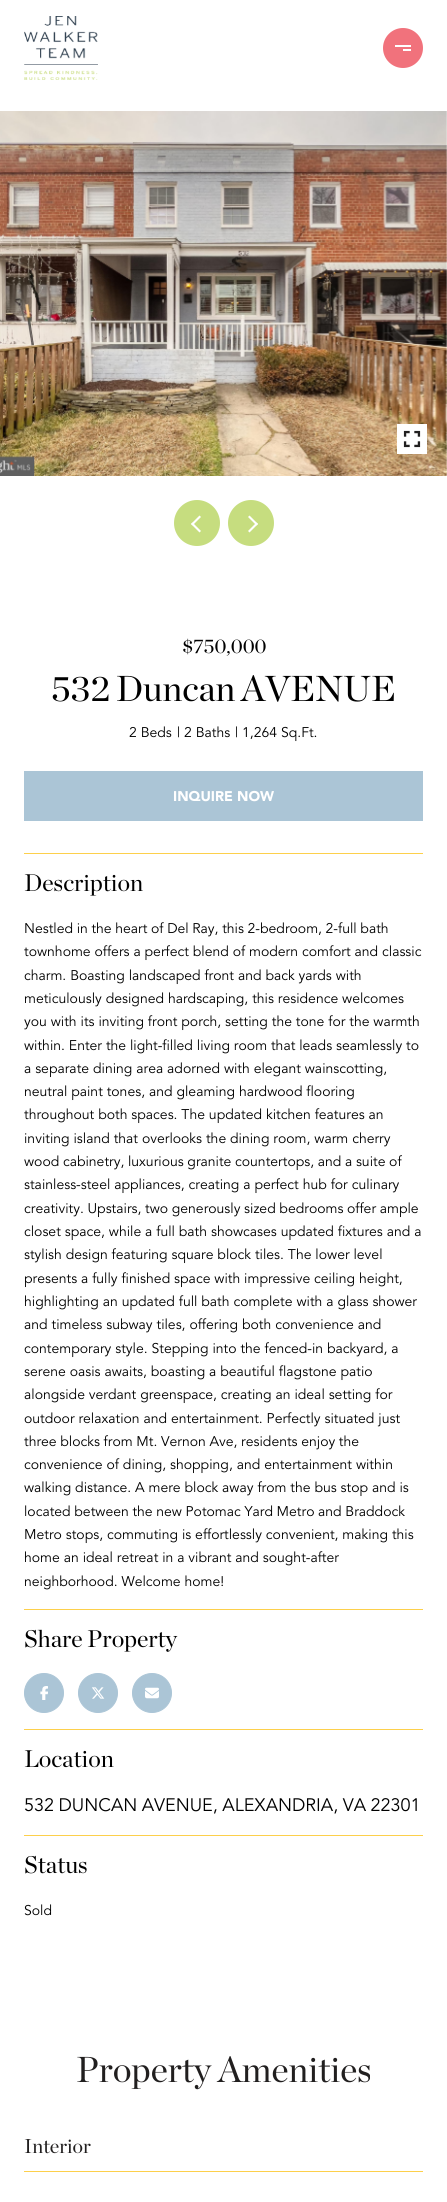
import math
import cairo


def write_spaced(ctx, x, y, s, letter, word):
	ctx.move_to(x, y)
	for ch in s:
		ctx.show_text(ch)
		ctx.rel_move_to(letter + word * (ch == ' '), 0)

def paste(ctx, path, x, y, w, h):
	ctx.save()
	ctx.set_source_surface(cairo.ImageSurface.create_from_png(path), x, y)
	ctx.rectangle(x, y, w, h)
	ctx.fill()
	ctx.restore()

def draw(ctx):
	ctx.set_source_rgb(1, 1, 1)
	ctx.paint()
	paste(ctx, 'media/1.png', 24, 16, 74, 64)
	ctx.set_source_rgb(0.945, 0.447, 0.486)
	ctx.arc(403, 48, 20, 0, 2 * math.pi)
	ctx.fill()
	ctx.set_source_rgb(1, 1, 1)
	ctx.rectangle(395, 45, 16, 2)
	ctx.fill()
	ctx.rectangle(403, 49, 8, 2)
	ctx.fill()
	paste(ctx, 'media/2.png', 0, 111, 447, 365)
	paste(ctx, 'media/3.png', 397, 424, 30, 30)
	ctx.set_source_rgb(0.776, 0.867, 0.498)
	ctx.arc(197, 523, 22, 0, 2 * math.pi)
	ctx.fill_preserve()
	ctx.stroke()
	ctx.set_source_rgb(1, 1, 1)
	ctx.new_path()
	ctx.move_to(199.5, 532.5)
	ctx.line_to(191, 524)
	ctx.line_to(192.5, 522.5)
	ctx.line_to(201, 531)
	ctx.close_path()
	ctx.fill()
	ctx.new_path()
	ctx.move_to(192.5, 525.5)
	ctx.line_to(191, 524)
	ctx.line_to(199.5, 515.5)
	ctx.line_to(201, 517)
	ctx.close_path()
	ctx.fill()
	ctx.set_source_rgb(0.776, 0.867, 0.498)
	ctx.arc(251, 523, 22, 0, 2 * math.pi)
	ctx.fill_preserve()
	ctx.stroke()
	ctx.set_source_rgb(1, 1, 1)
	ctx.new_path()
	ctx.move_to(249.5, 515.5)
	ctx.line_to(258, 524)
	ctx.line_to(256.5, 525.5)
	ctx.line_to(248, 517)
	ctx.close_path()
	ctx.fill()
	ctx.new_path()
	ctx.move_to(256.5, 522.5)
	ctx.line_to(258, 524)
	ctx.line_to(249.5, 532.5)
	ctx.line_to(248, 531)
	ctx.close_path()
	ctx.fill()
	ctx.select_font_face('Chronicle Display')
	ctx.set_font_size(20)
	ctx.set_source_rgb(0, 0, 0)
	ctx.move_to(182, 653)
	ctx.show_text('$750,000')
	ctx.set_font_size(36)
	write_spaced(ctx, 51, 701, '532 Duncan AVENUE', 0, -1)
	ctx.select_font_face('Avenir')
	ctx.set_font_size(14)
	for x, y, s in [
		(129, 737, '2 Beds'),
		(177, 737, '| 2 Baths'),
		(235, 737, '| 1,264 Sq.Ft.'),
	]:
		ctx.move_to(x, y)
		ctx.show_text(s)
	ctx.set_source_rgb(0.671, 0.773, 0.839)
	ctx.rectangle(24, 771, 399, 50)
	ctx.fill()
	ctx.select_font_face('Avenir Black')
	ctx.set_source_rgb(1, 1, 1)
	ctx.move_to(173, 801)
	ctx.show_text('INQUIRE NOW')
	ctx.set_source_rgb(0.992, 0.816, 0.294)
	ctx.rectangle(24, 853, 399, 1)
	ctx.fill()
	ctx.select_font_face('Chronicle Display')
	ctx.set_font_size(24)
	ctx.set_source_rgb(0, 0, 0)
	ctx.move_to(24, 891)
	ctx.show_text('Description')
	ctx.select_font_face('Avenir')
	ctx.set_font_size(14)
	write_spaced(ctx, 24, 933, 'Nestled in the heart of Del Ray, this 2-bedroom, 2-full bath', 0, -0.25)
	for x, y, s in [
		(24, 956, 'townhome offers a perfect blend of modern comfort and classic'),
		(24, 980, 'charm. Boasting landscaped front and back yards with'),
		(24, 1003, 'meticulously designed hardscaping, this residence welcomes'),
		(24, 1026, 'you with its inviting front porch, setting the tone for the warmth'),
		(24, 1050, 'within. Enter the light-filled living room that leads seamlessly to'),
		(24, 1073, 'a separate dining area adorned with elegant wainscotting,'),
		(24, 1096, 'neutral paint tones, and gleaming hardwood flooring'),
		(24, 1119, 'throughout both spaces. The updated kitchen features an'),
		(24, 1143, 'inviting island that overlooks the dining room, warm cherry'),
	]:
		ctx.move_to(x, y)
		ctx.show_text(s)
	write_spaced(ctx, 24, 1166, 'wood cabinetry, luxurious granite countertops, and a suite of', 0, -0.25)
	ctx.move_to(24, 1189)
	ctx.show_text('stainless-steel appliances, creating a perfect hub for culinary')
	write_spaced(ctx, 24, 1213, 'creativity. Upstairs, two generously sized bedrooms offer ample', 0, -0.25)
	for x, y, s in [
		(24, 1236, 'closet space, while a full bath showcases updated fixtures and a'),
		(24, 1259, 'stylish design featuring square block tiles. The lower level'),
		(24, 1283, 'presents a fully finished space with impressive ceiling height,'),
		(24, 1306, 'highlighting an updated full bath complete with a glass shower'),
		(24, 1329, 'and timeless subway tiles, offering both convenience and'),
		(24, 1353, 'contemporary style. Stepping into the fenced-in backyard, a'),
		(24, 1376, 'serene oasis awaits, boasting a beautiful flagstone patio'),
		(24, 1399, 'alongside verdant greenspace, creating an ideal setting for'),
		(24, 1423, 'outdoor relaxation and entertainment. Perfectly situated just'),
	]:
		ctx.move_to(x, y)
		ctx.show_text(s)
	write_spaced(ctx, 24, 1446, 'three blocks from Mt. Vernon Ave, residents enjoy the', 0, -0.25)
	ctx.move_to(24, 1469)
	ctx.show_text('convenience of dining, shopping, and entertainment within')
	ctx.move_to(24, 1492)
	ctx.show_text('walking distance. A mere block away from the bus stop and is')
	write_spaced(ctx, 24, 1516, 'located between the new Potomac Yard Metro and Braddock', 0, -0.25)
	for x, y, s in [
		(24, 1539, 'Metro stops, commuting is effortlessly convenient, making this'),
		(24, 1562, 'home an ideal retreat in a vibrant and sought-after'),
		(24, 1586, 'neighborhood. Welcome home!'),
	]:
		ctx.move_to(x, y)
		ctx.show_text(s)
	ctx.set_source_rgb(0.992, 0.816, 0.294)
	ctx.rectangle(24, 1609, 399, 1)
	ctx.fill()
	ctx.select_font_face('Chronicle Display')
	ctx.set_font_size(24)
	ctx.set_source_rgb(0, 0, 0)
	ctx.move_to(24, 1647)
	ctx.show_text('Share Property')
	ctx.set_source_rgb(0.671, 0.773, 0.839)
	ctx.new_path()
	ctx.arc(44, 1693, 19.5, 0, 2 * math.pi)
	ctx.fill_preserve()
	ctx.set_line_width(1)
	ctx.stroke()
	paste(ctx, 'media/4.png', 40, 1686, 8, 14)
	ctx.arc(98, 1693, 19.5, 0, 2 * math.pi)
	ctx.fill_preserve()
	ctx.stroke()
	paste(ctx, 'media/5.png', 92, 1687, 13, 12)
	ctx.arc(152, 1693, 19.5, 0, 2 * math.pi)
	ctx.fill_preserve()
	ctx.stroke()
	paste(ctx, 'media/6.png', 145, 1687, 14, 12)
	ctx.set_source_rgb(0.992, 0.816, 0.294)
	ctx.rectangle(24, 1729, 399, 1)
	ctx.fill()
	ctx.set_source_rgb(0, 0, 0)
	ctx.move_to(24, 1767)
	ctx.show_text('Location')
	ctx.select_font_face('Avenir')
	ctx.set_font_size(18)
	write_spaced(ctx, 24, 1811, '532 DUNCAN AVENUE, ALEXANDRIA, VA 22301', 0, -0.5)
	ctx.set_source_rgb(0.992, 0.816, 0.294)
	ctx.rectangle(24, 1835, 399, 1)
	ctx.fill()
	ctx.select_font_face('Chronicle Display')
	ctx.set_font_size(24)
	ctx.set_source_rgb(0, 0, 0)
	ctx.move_to(24, 1873)
	ctx.show_text('Status')
	ctx.select_font_face('Avenir')
	ctx.set_font_size(14)
	ctx.move_to(24, 1915)
	ctx.show_text('Sold')
	ctx.select_font_face('Chronicle Display')
	ctx.set_font_size(36)
	ctx.set_source_rgb(0.129, 0.122, 0.122)
	ctx.move_to(76, 2082)
	ctx.show_text('Property Amenities')
	ctx.set_source_rgb(0.992, 0.816, 0.294)
	ctx.rectangle(24, 2171, 399, 1)
	ctx.fill()
	ctx.set_font_size(20)
	ctx.set_source_rgb(0.129, 0.122, 0.122)
	ctx.move_to(24, 2153)
	ctx.show_text('Interior')


surface = cairo.ImageSurface(cairo.FORMAT_RGB24, 447, 2202)
ctx = cairo.Context(surface)
options = cairo.FontOptions()
options.set_hint_metrics(cairo.HINT_METRICS_OFF)
options.set_hint_style(cairo.HINT_STYLE_NONE)
ctx.set_font_options(options)
ctx.set_miter_limit(4)
draw(ctx)
surface.write_to_png('image.png')
